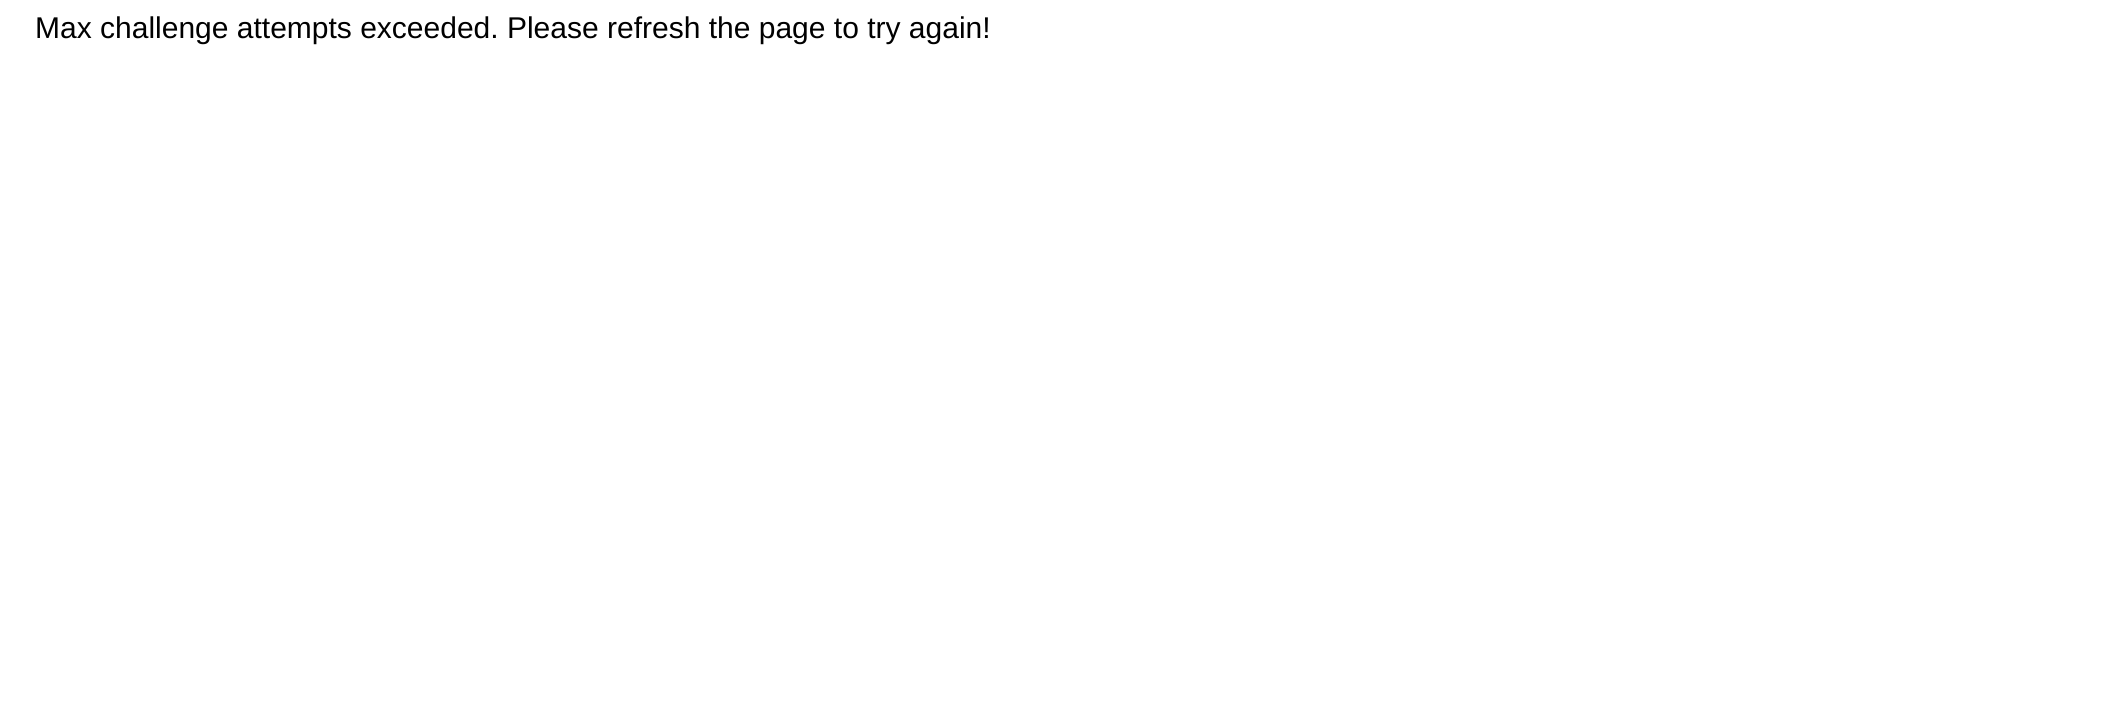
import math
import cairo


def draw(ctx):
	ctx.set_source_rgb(1, 1, 1)
	ctx.paint()
	ctx.select_font_face('Liberation Sans')
	ctx.set_font_size(30)
	ctx.set_source_rgb(0, 0, 0)
	ctx.move_to(35, 38)
	ctx.show_text('Max challenge attempts exceeded. Please refresh the page to try again!')


surface = cairo.ImageSurface(cairo.FORMAT_RGB24, 2111, 724)
ctx = cairo.Context(surface)
options = cairo.FontOptions()
options.set_hint_metrics(cairo.HINT_METRICS_OFF)
options.set_hint_style(cairo.HINT_STYLE_NONE)
ctx.set_font_options(options)
ctx.set_miter_limit(4)
draw(ctx)
surface.write_to_png('image.png')
